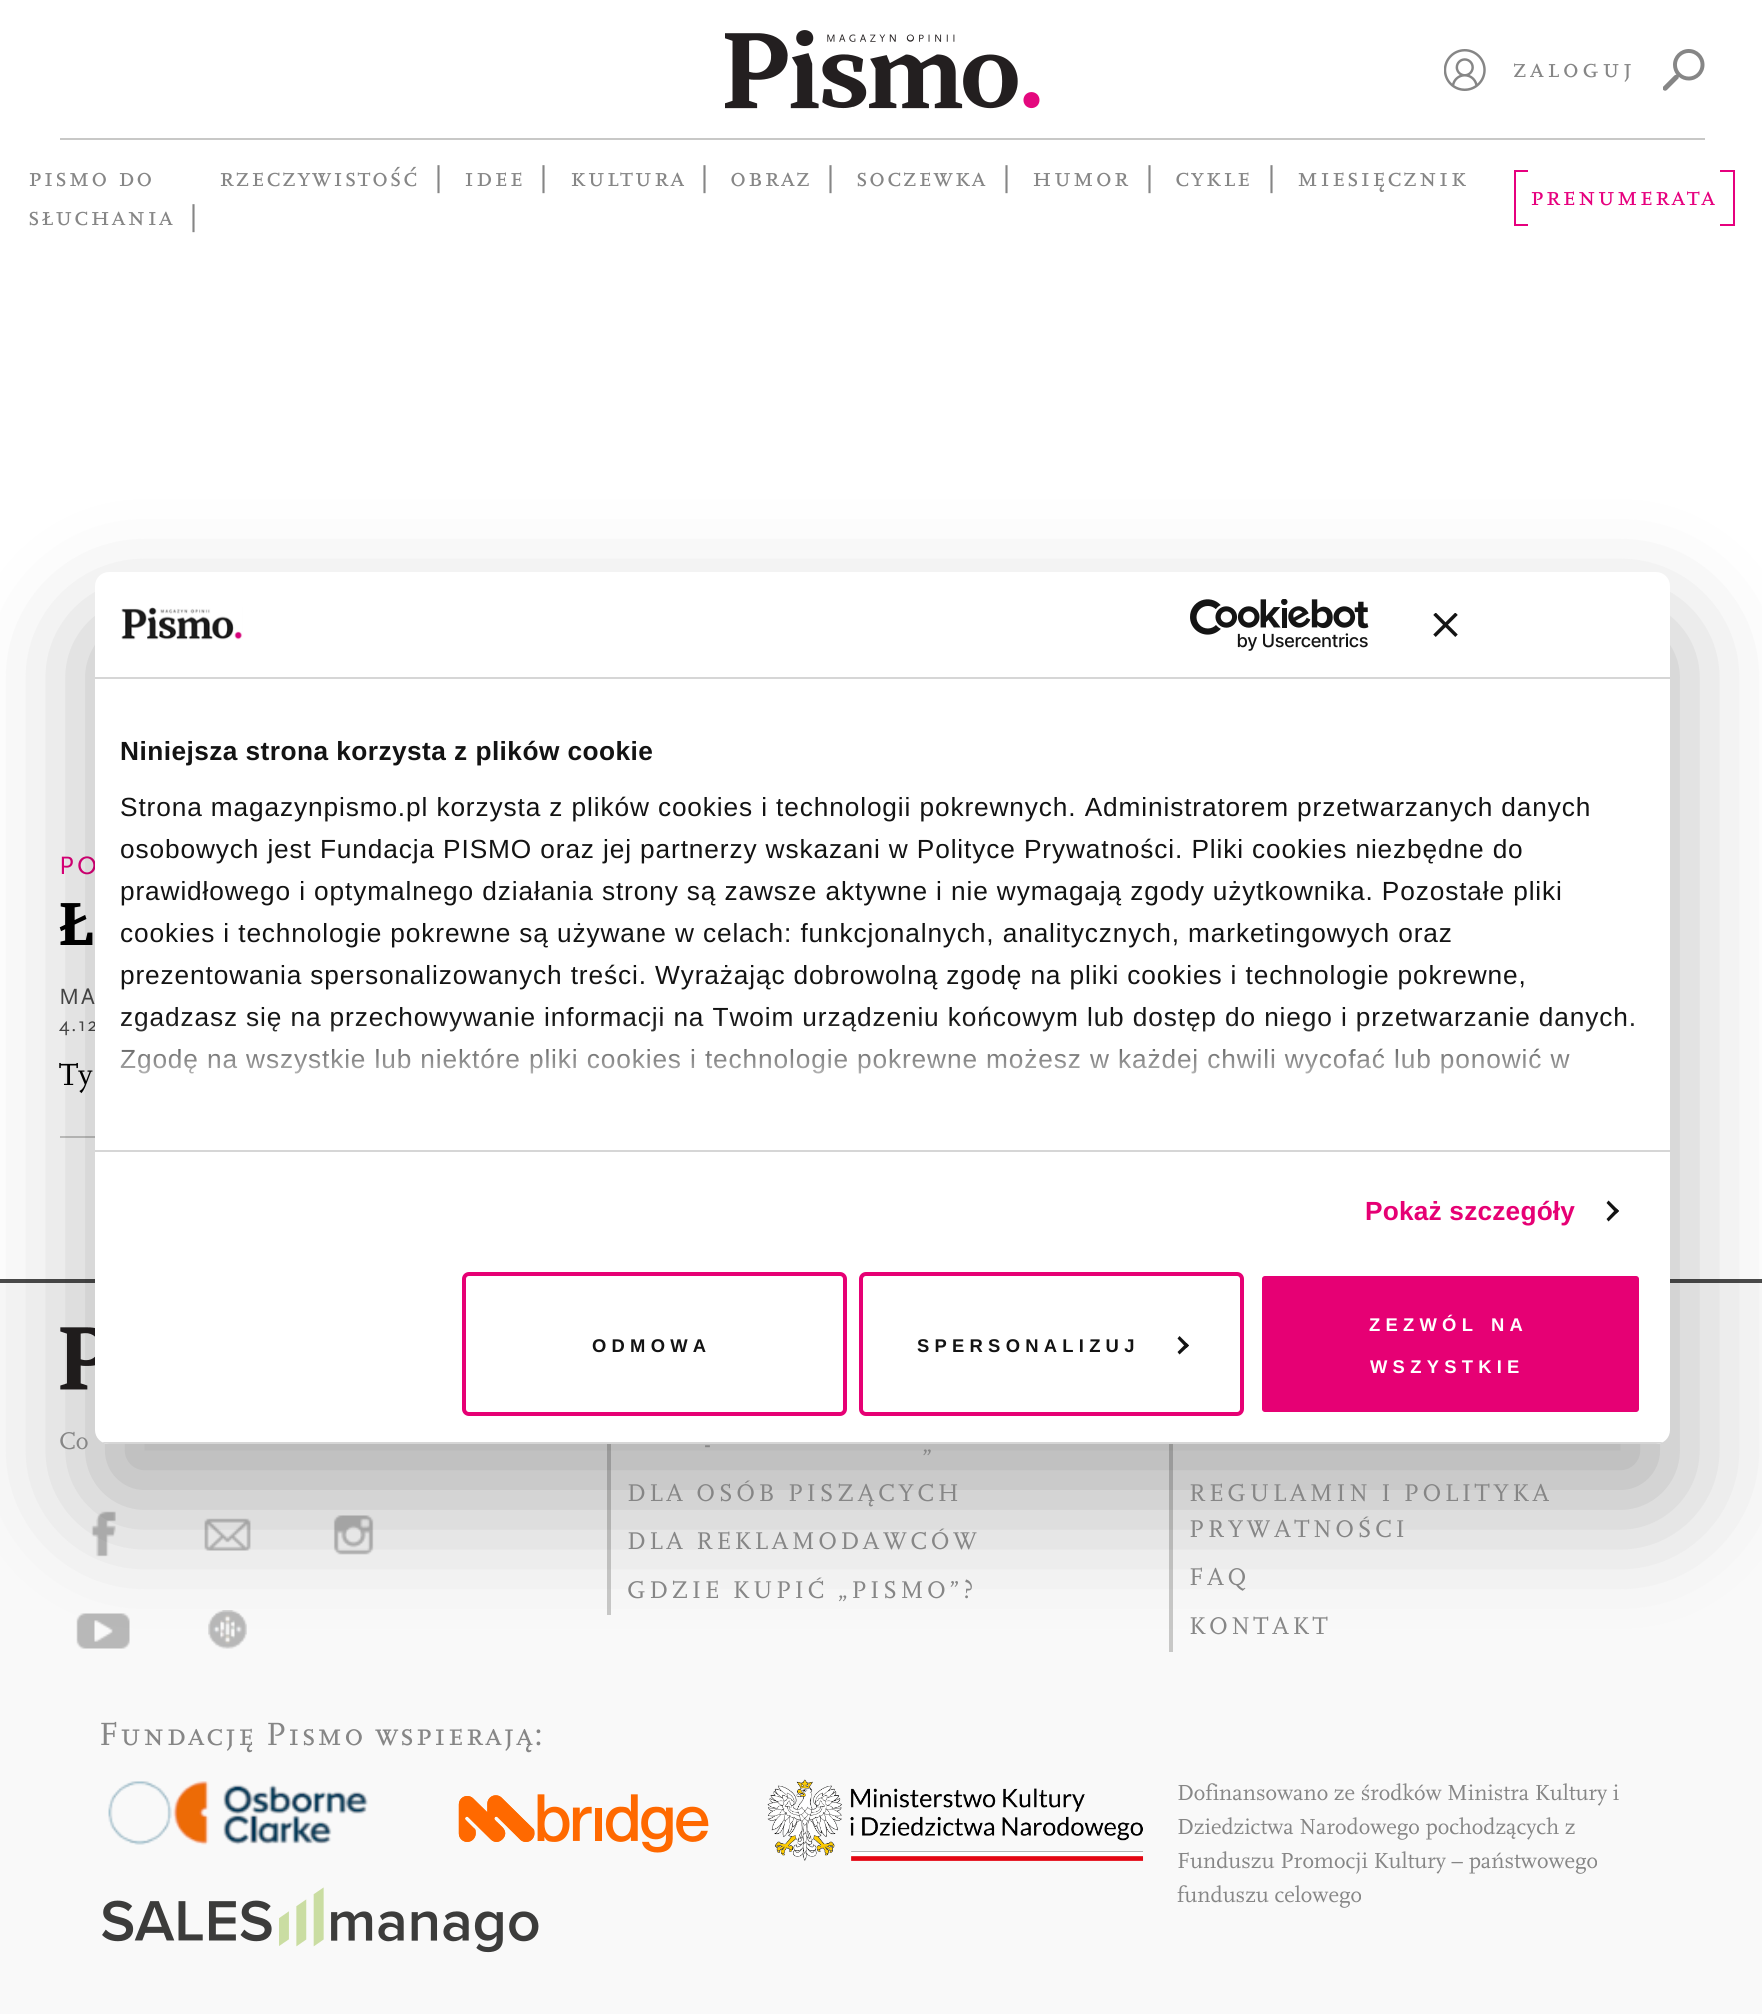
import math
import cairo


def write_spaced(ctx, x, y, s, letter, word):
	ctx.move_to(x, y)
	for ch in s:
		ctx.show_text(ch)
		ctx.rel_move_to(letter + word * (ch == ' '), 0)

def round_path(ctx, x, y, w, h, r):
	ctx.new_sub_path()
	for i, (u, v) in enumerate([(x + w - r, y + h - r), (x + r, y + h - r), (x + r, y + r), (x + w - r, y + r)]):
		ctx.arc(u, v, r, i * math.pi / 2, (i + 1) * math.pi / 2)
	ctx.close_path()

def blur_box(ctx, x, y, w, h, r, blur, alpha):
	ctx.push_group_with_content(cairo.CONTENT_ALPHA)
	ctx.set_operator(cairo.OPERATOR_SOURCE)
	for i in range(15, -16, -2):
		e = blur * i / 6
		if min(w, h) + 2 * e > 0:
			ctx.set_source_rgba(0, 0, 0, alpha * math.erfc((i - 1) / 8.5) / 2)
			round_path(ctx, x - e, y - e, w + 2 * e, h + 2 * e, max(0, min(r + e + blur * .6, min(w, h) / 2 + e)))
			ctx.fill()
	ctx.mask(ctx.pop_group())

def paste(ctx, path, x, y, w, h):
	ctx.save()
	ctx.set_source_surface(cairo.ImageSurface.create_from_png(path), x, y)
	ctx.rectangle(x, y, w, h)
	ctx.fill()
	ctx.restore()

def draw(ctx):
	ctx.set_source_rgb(1, 1, 1)
	ctx.paint()
	ctx.set_source_rgb(0.784, 0.784, 0.78)
	ctx.rectangle(60, 138, 1645, 2)
	ctx.fill()
	paste(ctx, 'media/1.png', 725, 30, 315, 79)
	paste(ctx, 'media/2.png', 1444, 49, 42, 42)
	ctx.select_font_face('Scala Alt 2')
	ctx.set_font_size(28)
	ctx.set_source_rgb(0.525, 0.525, 0.525)
	write_spaced(ctx, 1513, 77, 'ZALOGUJ', 3.5, 0)
	paste(ctx, 'media/3.png', 1663, 49, 42, 42)
	write_spaced(ctx, 28, 186, 'PISMO DO', 1.75, 0)
	write_spaced(ctx, 28, 225, 'SŁUCHANIA', 1.75, 0)
	ctx.select_font_face('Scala', cairo.FONT_SLANT_NORMAL, cairo.FONT_WEIGHT_BOLD)
	write_spaced(ctx, 190, 225, '|', 1.75, 0)
	ctx.select_font_face('Scala Alt 2')
	write_spaced(ctx, 219, 186, 'RZECZYWISTOŚĆ', 1.75, 0)
	ctx.select_font_face('Scala', cairo.FONT_SLANT_NORMAL, cairo.FONT_WEIGHT_BOLD)
	write_spaced(ctx, 435, 186, '|', 1.75, 0)
	ctx.select_font_face('Scala Alt 2')
	write_spaced(ctx, 464, 186, 'IDEE', 1.75, 0)
	ctx.select_font_face('Scala', cairo.FONT_SLANT_NORMAL, cairo.FONT_WEIGHT_BOLD)
	write_spaced(ctx, 540, 186, '|', 1.75, 0)
	ctx.select_font_face('Scala Alt 2')
	write_spaced(ctx, 570, 186, 'KULTURA', 1.75, 0)
	ctx.select_font_face('Scala', cairo.FONT_SLANT_NORMAL, cairo.FONT_WEIGHT_BOLD)
	write_spaced(ctx, 701, 186, '|', 1.75, 0)
	ctx.select_font_face('Scala Alt 2')
	write_spaced(ctx, 730, 186, 'OBRAZ', 1.75, 0)
	ctx.select_font_face('Scala', cairo.FONT_SLANT_NORMAL, cairo.FONT_WEIGHT_BOLD)
	write_spaced(ctx, 827, 186, '|', 1.75, 0)
	ctx.select_font_face('Scala Alt 2')
	write_spaced(ctx, 856, 186, 'SOCZEWKA', 1.75, 0)
	ctx.select_font_face('Scala', cairo.FONT_SLANT_NORMAL, cairo.FONT_WEIGHT_BOLD)
	write_spaced(ctx, 1003, 186, '|', 1.75, 0)
	ctx.select_font_face('Scala Alt 2')
	write_spaced(ctx, 1032, 186, 'HUMOR', 1.75, 0)
	ctx.select_font_face('Scala', cairo.FONT_SLANT_NORMAL, cairo.FONT_WEIGHT_BOLD)
	write_spaced(ctx, 1146, 186, '|', 1.75, 0)
	ctx.select_font_face('Scala Alt 2')
	write_spaced(ctx, 1175, 186, 'CYKLE', 1.75, 0)
	ctx.select_font_face('Scala', cairo.FONT_SLANT_NORMAL, cairo.FONT_WEIGHT_BOLD)
	write_spaced(ctx, 1268, 186, '|', 1.75, 0)
	ctx.select_font_face('Scala Alt 2')
	write_spaced(ctx, 1297, 186, 'MIESIĘCZNIK', 1.75, 0)
	ctx.set_source_rgb(0.902, 0, 0.494)
	ctx.rectangle(1514, 170, 14, 2)
	ctx.rectangle(1514, 224, 14, 2)
	ctx.rectangle(1514, 170, 2, 56)
	ctx.fill()
	write_spaced(ctx, 1530, 205, 'PRENUMERATA', 1.75, 0)
	ctx.rectangle(1720, 170, 14, 2)
	ctx.rectangle(1733, 170, 2, 56)
	ctx.rectangle(1720, 224, 14, 2)
	ctx.fill()
	ctx.select_font_face('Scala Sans')
	ctx.set_font_size(26.25)
	write_spaced(ctx, 59, 874, 'PO', 3.5, 0)
	ctx.select_font_face('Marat', cairo.FONT_SLANT_NORMAL, cairo.FONT_WEIGHT_BOLD)
	ctx.set_font_size(66)
	ctx.set_source_rgb(0, 0, 0)
	ctx.move_to(59, 945)
	ctx.show_text('Ł')
	ctx.select_font_face('Scala Sans')
	ctx.set_font_size(23)
	ctx.set_source_rgb(0.294, 0.294, 0.294)
	write_spaced(ctx, 59, 1004, 'MA', 1.75, 0)
	ctx.set_font_size(20)
	write_spaced(ctx, 59, 1031, '4.12', 1.75, 0)
	ctx.select_font_face('Scala')
	ctx.set_font_size(32)
	ctx.set_source_rgb(0, 0, 0)
	ctx.move_to(59, 1085)
	ctx.show_text('Ty')
	ctx.set_source_rgb(0.784, 0.784, 0.78)
	ctx.rectangle(60, 1136, 35, 2)
	ctx.fill()
	ctx.set_source_rgb(0.973, 0.973, 0.973)
	ctx.rectangle(0, 1283, 1762, 731)
	ctx.fill()
	ctx.set_source_rgb(0.294, 0.294, 0.294)
	ctx.rectangle(0, 1279, 1762, 4)
	ctx.fill()
	paste(ctx, 'media/7.png', 60, 1327, 35, 63)
	paste(ctx, 'media/8.png', 91, 1511, 25, 46)
	paste(ctx, 'media/9.png', 204, 1518, 47, 33)
	paste(ctx, 'media/10.png', 333, 1515, 41, 40)
	paste(ctx, 'media/11.png', 76, 1613, 54, 36)
	paste(ctx, 'media/12.png', 208, 1610, 39, 39)
	ctx.set_source_rgb(0.784, 0.784, 0.78)
	ctx.rectangle(607, 1444, 4, 171)
	ctx.fill()
	ctx.rectangle(1169, 1444, 4, 208)
	ctx.fill()
	ctx.set_source_rgb(0, 0, 0)
	blur_box(ctx, 95, 628, 1575, 872, 14, 59.5, 0.3)
	ctx.set_source_rgb(1, 1, 1)
	round_path(ctx, 95, 572, 1575, 872, 14)
	ctx.fill()
	ctx.set_source_rgb(0.839, 0.839, 0.839)
	ctx.rectangle(95, 677, 1575, 2)
	ctx.fill()
	paste(ctx, 'media/4.png', 121, 607, 122, 33)
	paste(ctx, 'media/5.png', 1190, 599, 179, 52)
	paste(ctx, 'media/6.png', 1433, 613, 25, 24)
	ctx.rectangle(95, 1150, 1575, 2)
	ctx.fill()
	ctx.select_font_face('Liberation Sans', cairo.FONT_SLANT_NORMAL, cairo.FONT_WEIGHT_BOLD)
	ctx.set_font_size(26.25)
	ctx.set_source_rgb(0.078, 0.078, 0.078)
	write_spaced(ctx, 120, 760, 'Niniejsza strona korzysta z plików cookie', 0.45, 0)
	ctx.select_font_face('Liberation Sans')
	for x, y, s in [
		(120, 816, 'Strona magazynpismo.pl korzysta z plików cookies i technologii pokrewnych. Administratorem przetwarzanych danych'),
		(120, 858, 'osobowych jest Fundacja PISMO oraz jej partnerzy wskazani w Polityce Prywatności. Pliki cookies niezbędne do'),
		(120, 900, 'prawidłowego i optymalnego działania strony są zawsze aktywne i nie wymagają zgody użytkownika. Pozostałe pliki'),
		(120, 942, 'cookies i technologie pokrewne są używane w celach: funkcjonalnych, analitycznych, marketingowych oraz'),
		(120, 984, 'prezentowania spersonalizowanych treści. Wyrażając dobrowolną zgodę na pliki cookies i technologie pokrewne,'),
		(120, 1026, 'zgadzasz się na przechowywanie informacji na Twoim urządzeniu końcowym lub dostęp do niego i przetwarzanie danych.'),
		(120, 1068, 'Zgodę na wszystkie lub niektóre pliki cookies i technologie pokrewne możesz w każdej chwili wycofać lub ponowić w'),
	]:
		write_spaced(ctx, x, y, s, 0.88, 0)
	gradient = cairo.LinearGradient(871, 1150, 871, 1019)
	gradient.add_color_stop_rgba(0, 1, 1, 1, 1)
	gradient.add_color_stop_rgba(0.5, 1, 1, 1, 0.8)
	gradient.add_color_stop_rgba(1, 1, 1, 1, 0)
	ctx.set_source(gradient)
	ctx.rectangle(120, 1021, 1513, 53)
	ctx.fill()
	ctx.select_font_face('Liberation Sans', cairo.FONT_SLANT_NORMAL, cairo.FONT_WEIGHT_BOLD)
	ctx.set_source_rgb(0.902, 0, 0.455)
	write_spaced(ctx, 1365, 1220, 'Pokaż szczegóły', 0.2, 0)
	ctx.set_source_rgb(0.078, 0.078, 0.078)
	ctx.new_path()
	ctx.move_to(1608.5, 1200.5)
	ctx.line_to(1619, 1211)
	ctx.line_to(1616.5, 1213.5)
	ctx.line_to(1606.5, 1203)
	ctx.close_path()
	ctx.fill()
	ctx.new_path()
	ctx.move_to(1616.5, 1208.5)
	ctx.line_to(1619, 1211)
	ctx.line_to(1608.5, 1221.5)
	ctx.line_to(1606.5, 1219)
	ctx.close_path()
	ctx.fill()
	ctx.save()
	round_path(ctx, 95, 572, 1575, 872, 14)
	ctx.clip()
	ctx.set_source_rgb(0.839, 0.839, 0.839)
	ctx.rectangle(95, 1442, 1575, 2)
	ctx.fill()
	ctx.restore()
	round_path(ctx, 464, 1274, 381, 140, 5)
	ctx.set_source_rgb(0.902, 0, 0.455)
	ctx.set_line_width(4)
	ctx.stroke()
	ctx.set_font_size(18.4)
	ctx.set_source_rgb(0.078, 0.078, 0.078)
	write_spaced(ctx, 592, 1352, 'ODMOWA', 5.25, 0)
	round_path(ctx, 861, 1274, 381, 140, 5)
	ctx.set_source_rgb(0.902, 0, 0.455)
	ctx.stroke()
	ctx.set_source_rgb(0.078, 0.078, 0.078)
	write_spaced(ctx, 917, 1352, 'SPERSONALIZUJ', 5.25, 0)
	ctx.new_path()
	ctx.move_to(1179.5, 1336)
	ctx.line_to(1189, 1345.5)
	ctx.line_to(1186.5, 1348)
	ctx.line_to(1177.5, 1338.5)
	ctx.close_path()
	ctx.fill()
	ctx.new_path()
	ctx.move_to(1186.5, 1343)
	ctx.line_to(1189, 1345.5)
	ctx.line_to(1179.5, 1354.5)
	ctx.line_to(1177.5, 1352)
	ctx.close_path()
	ctx.fill()
	ctx.set_source_rgb(0.902, 0, 0.455)
	round_path(ctx, 1260, 1274, 381, 140, 5)
	ctx.fill_preserve()
	ctx.set_source_rgb(1, 1, 1)
	ctx.stroke()
	for x, y, s in [
		(1369, 1331, 'ZEZWÓL'),
		(1491, 1331, 'NA'),
		(1370, 1373, 'WSZYSTKIE'),
	]:
		write_spaced(ctx, x, y, s, 5.25, 0)
	ctx.select_font_face('Scala')
	ctx.set_font_size(25.25)
	ctx.set_source_rgb(0.525, 0.525, 0.525)
	ctx.move_to(59, 1449)
	ctx.show_text('Co')
	for x, y, s in [
		(704, 1452, '-'),
		(922, 1452, '„'),
		(627, 1501, 'DLA OSÓB PISZĄCYCH'),
		(1189, 1501, 'REGULAMIN I POLITYKA'),
		(1189, 1537, 'PRYWATNOŚCI'),
		(627, 1549, 'DLA REKLAMODAWCÓW'),
		(627, 1598, 'GDZIE KUPIĆ „PISMO”?'),
		(1189, 1585, 'FAQ'),
		(1189, 1634, 'KONTAKT'),
	]:
		write_spaced(ctx, x, y, s, 3.5, 0)
	ctx.select_font_face('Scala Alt')
	ctx.set_font_size(33.6)
	write_spaced(ctx, 99, 1745, 'Fundację Pismo wspierają:', 1.75, 0)
	paste(ctx, 'media/13.png', 108, 1781, 260, 64)
	paste(ctx, 'media/14.png', 458, 1794, 251, 59)
	paste(ctx, 'media/15.png', 102, 1887, 437, 66)
	paste(ctx, 'media/16.png', 767, 1779, 377, 82)
	ctx.select_font_face('Scala')
	ctx.set_font_size(22.75)
	for x, y, s in [
		(1177, 1800, 'Dofinansowano ze środków Ministra Kultury i'),
		(1177, 1834, 'Dziedzictwa Narodowego pochodzących z'),
		(1177, 1868, 'Funduszu Promocji Kultury – państwowego'),
		(1177, 1902, 'funduszu celowego'),
	]:
		ctx.move_to(x, y)
		ctx.show_text(s)


surface = cairo.ImageSurface(cairo.FORMAT_RGB24, 1762, 2014)
ctx = cairo.Context(surface)
options = cairo.FontOptions()
options.set_hint_metrics(cairo.HINT_METRICS_OFF)
options.set_hint_style(cairo.HINT_STYLE_NONE)
ctx.set_font_options(options)
ctx.set_miter_limit(4)
draw(ctx)
surface.write_to_png('image.png')
